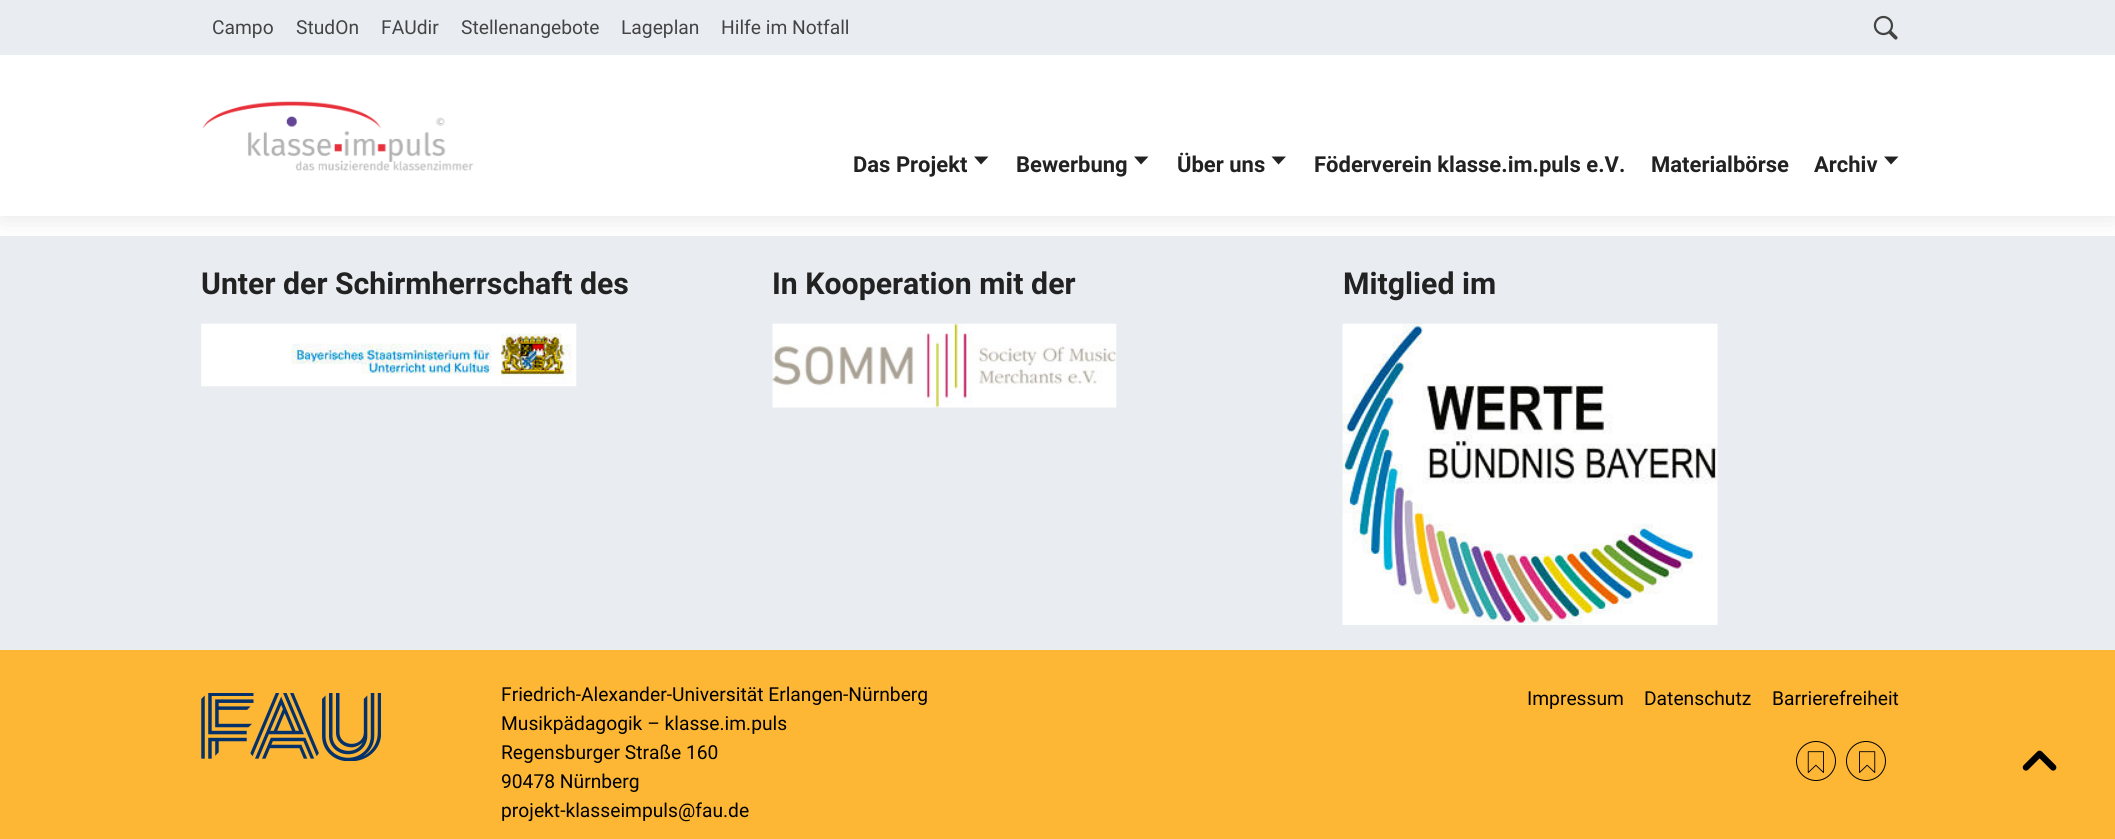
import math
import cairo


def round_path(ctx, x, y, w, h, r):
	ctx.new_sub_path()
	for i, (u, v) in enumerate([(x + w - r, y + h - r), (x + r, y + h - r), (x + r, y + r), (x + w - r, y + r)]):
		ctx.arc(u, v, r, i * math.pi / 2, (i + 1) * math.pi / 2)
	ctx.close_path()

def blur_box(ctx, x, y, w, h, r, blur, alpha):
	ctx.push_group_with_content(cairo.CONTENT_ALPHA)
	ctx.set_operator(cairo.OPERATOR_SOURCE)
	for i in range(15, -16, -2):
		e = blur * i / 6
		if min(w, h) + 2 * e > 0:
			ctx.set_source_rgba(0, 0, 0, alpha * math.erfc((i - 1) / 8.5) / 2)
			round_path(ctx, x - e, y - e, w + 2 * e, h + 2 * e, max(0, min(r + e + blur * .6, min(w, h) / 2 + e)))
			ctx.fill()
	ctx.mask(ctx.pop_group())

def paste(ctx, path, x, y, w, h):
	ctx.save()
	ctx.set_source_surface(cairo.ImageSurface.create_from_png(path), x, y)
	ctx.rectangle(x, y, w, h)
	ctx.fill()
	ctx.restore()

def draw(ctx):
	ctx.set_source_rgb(1, 1, 1)
	ctx.paint()
	ctx.set_source_rgb(0.914, 0.929, 0.949)
	ctx.rectangle(0, 236, 2115, 414)
	ctx.fill()
	ctx.set_source_rgb(0, 0, 0)
	blur_box(ctx, 0, 0, 2115, 216, 0, 13, 0.11)
	ctx.set_source_rgb(1, 1, 1)
	ctx.rectangle(0, 55, 2115, 161)
	ctx.fill()
	ctx.set_source_rgb(0.914, 0.929, 0.949)
	ctx.rectangle(0, 0, 2115, 55)
	ctx.fill()
	ctx.select_font_face('Roboto')
	ctx.set_font_size(19.25)
	ctx.set_source_rgb(0.267, 0.267, 0.267)
	for x, y, s in [
		(212, 34, 'Campo'),
		(296, 34, 'StudOn'),
		(381, 34, 'FAUdir'),
		(461, 34, 'Stellenangebote'),
		(621, 34, 'Lageplan'),
		(721, 34, 'Hilfe im Notfall'),
	]:
		ctx.move_to(x, y)
		ctx.show_text(s)
	paste(ctx, 'media/1.png', 1873, 15, 25, 25)
	paste(ctx, 'media/2.png', 202, 101, 272, 70)
	ctx.select_font_face('Roboto', cairo.FONT_SLANT_NORMAL, cairo.FONT_WEIGHT_BOLD)
	ctx.set_font_size(22)
	ctx.set_source_rgb(0.133, 0.133, 0.133)
	ctx.move_to(853, 172)
	ctx.show_text('Das Projekt')
	ctx.new_path()
	ctx.move_to(974, 156.5)
	ctx.line_to(981, 164.5)
	ctx.line_to(988.5, 156.5)
	ctx.close_path()
	ctx.fill()
	ctx.move_to(1016, 172)
	ctx.show_text('Bewerbung')
	ctx.new_path()
	ctx.move_to(1134, 156.5)
	ctx.line_to(1141, 164.5)
	ctx.line_to(1148.5, 156.5)
	ctx.close_path()
	ctx.fill()
	ctx.move_to(1177, 172)
	ctx.show_text('Über uns')
	ctx.new_path()
	ctx.move_to(1271.5, 156.5)
	ctx.line_to(1278.5, 164.5)
	ctx.line_to(1286, 156.5)
	ctx.close_path()
	ctx.fill()
	for x, y, s in [
		(1314, 172, 'Föderverein klasse.im.puls e.V.'),
		(1651, 172, 'Materialbörse'),
		(1814, 172, 'Archiv'),
	]:
		ctx.move_to(x, y)
		ctx.show_text(s)
	ctx.new_path()
	ctx.move_to(1884, 156.5)
	ctx.line_to(1891, 164.5)
	ctx.line_to(1898.5, 156.5)
	ctx.close_path()
	ctx.fill()
	ctx.set_font_size(30.25)
	ctx.move_to(201, 294)
	ctx.show_text('Unter der Schirmherrschaft des')
	paste(ctx, 'media/3.png', 201, 323, 376, 64)
	ctx.move_to(772, 294)
	ctx.show_text('In Kooperation mit der')
	paste(ctx, 'media/4.png', 772, 323, 345, 85)
	ctx.move_to(1343, 294)
	ctx.show_text('Mitglied im')
	paste(ctx, 'media/5.png', 1342, 323, 376, 302)
	ctx.set_source_rgb(0.992, 0.718, 0.208)
	ctx.rectangle(0, 650, 2115, 189)
	ctx.fill()
	paste(ctx, 'media/6.png', 201, 693, 180, 68)
	ctx.select_font_face('Roboto')
	ctx.set_font_size(19.25)
	ctx.set_source_rgb(0, 0, 0)
	for x, y, s in [
		(501, 701, 'Friedrich-Alexander-Universität Erlangen-Nürnberg'),
		(501, 730, 'Musikpädagogik – klasse.im.puls'),
		(501, 759, 'Regensburger Straße 160'),
		(501, 788, '90478 Nürnberg'),
		(501, 817, 'projekt-klasseimpuls@fau.de'),
		(1527, 705, 'Impressum'),
		(1644, 705, 'Datenschutz'),
		(1772, 705, 'Barrierefreiheit'),
	]:
		ctx.move_to(x, y)
		ctx.show_text(s)
	ctx.new_path()
	ctx.arc(1816, 761, 19.5, 0, 2 * math.pi)
	ctx.set_line_width(1)
	ctx.stroke()
	paste(ctx, 'media/7.png', 1807, 751, 17, 22)
	ctx.arc(1866, 761, 19.5, 0, 2 * math.pi)
	ctx.stroke()
	paste(ctx, 'media/8.png', 1859, 751, 17, 22)
	paste(ctx, 'media/9.png', 2022, 750, 35, 21)


surface = cairo.ImageSurface(cairo.FORMAT_RGB24, 2115, 839)
ctx = cairo.Context(surface)
options = cairo.FontOptions()
options.set_hint_metrics(cairo.HINT_METRICS_OFF)
options.set_hint_style(cairo.HINT_STYLE_NONE)
ctx.set_font_options(options)
ctx.set_miter_limit(4)
draw(ctx)
surface.write_to_png('image.png')
